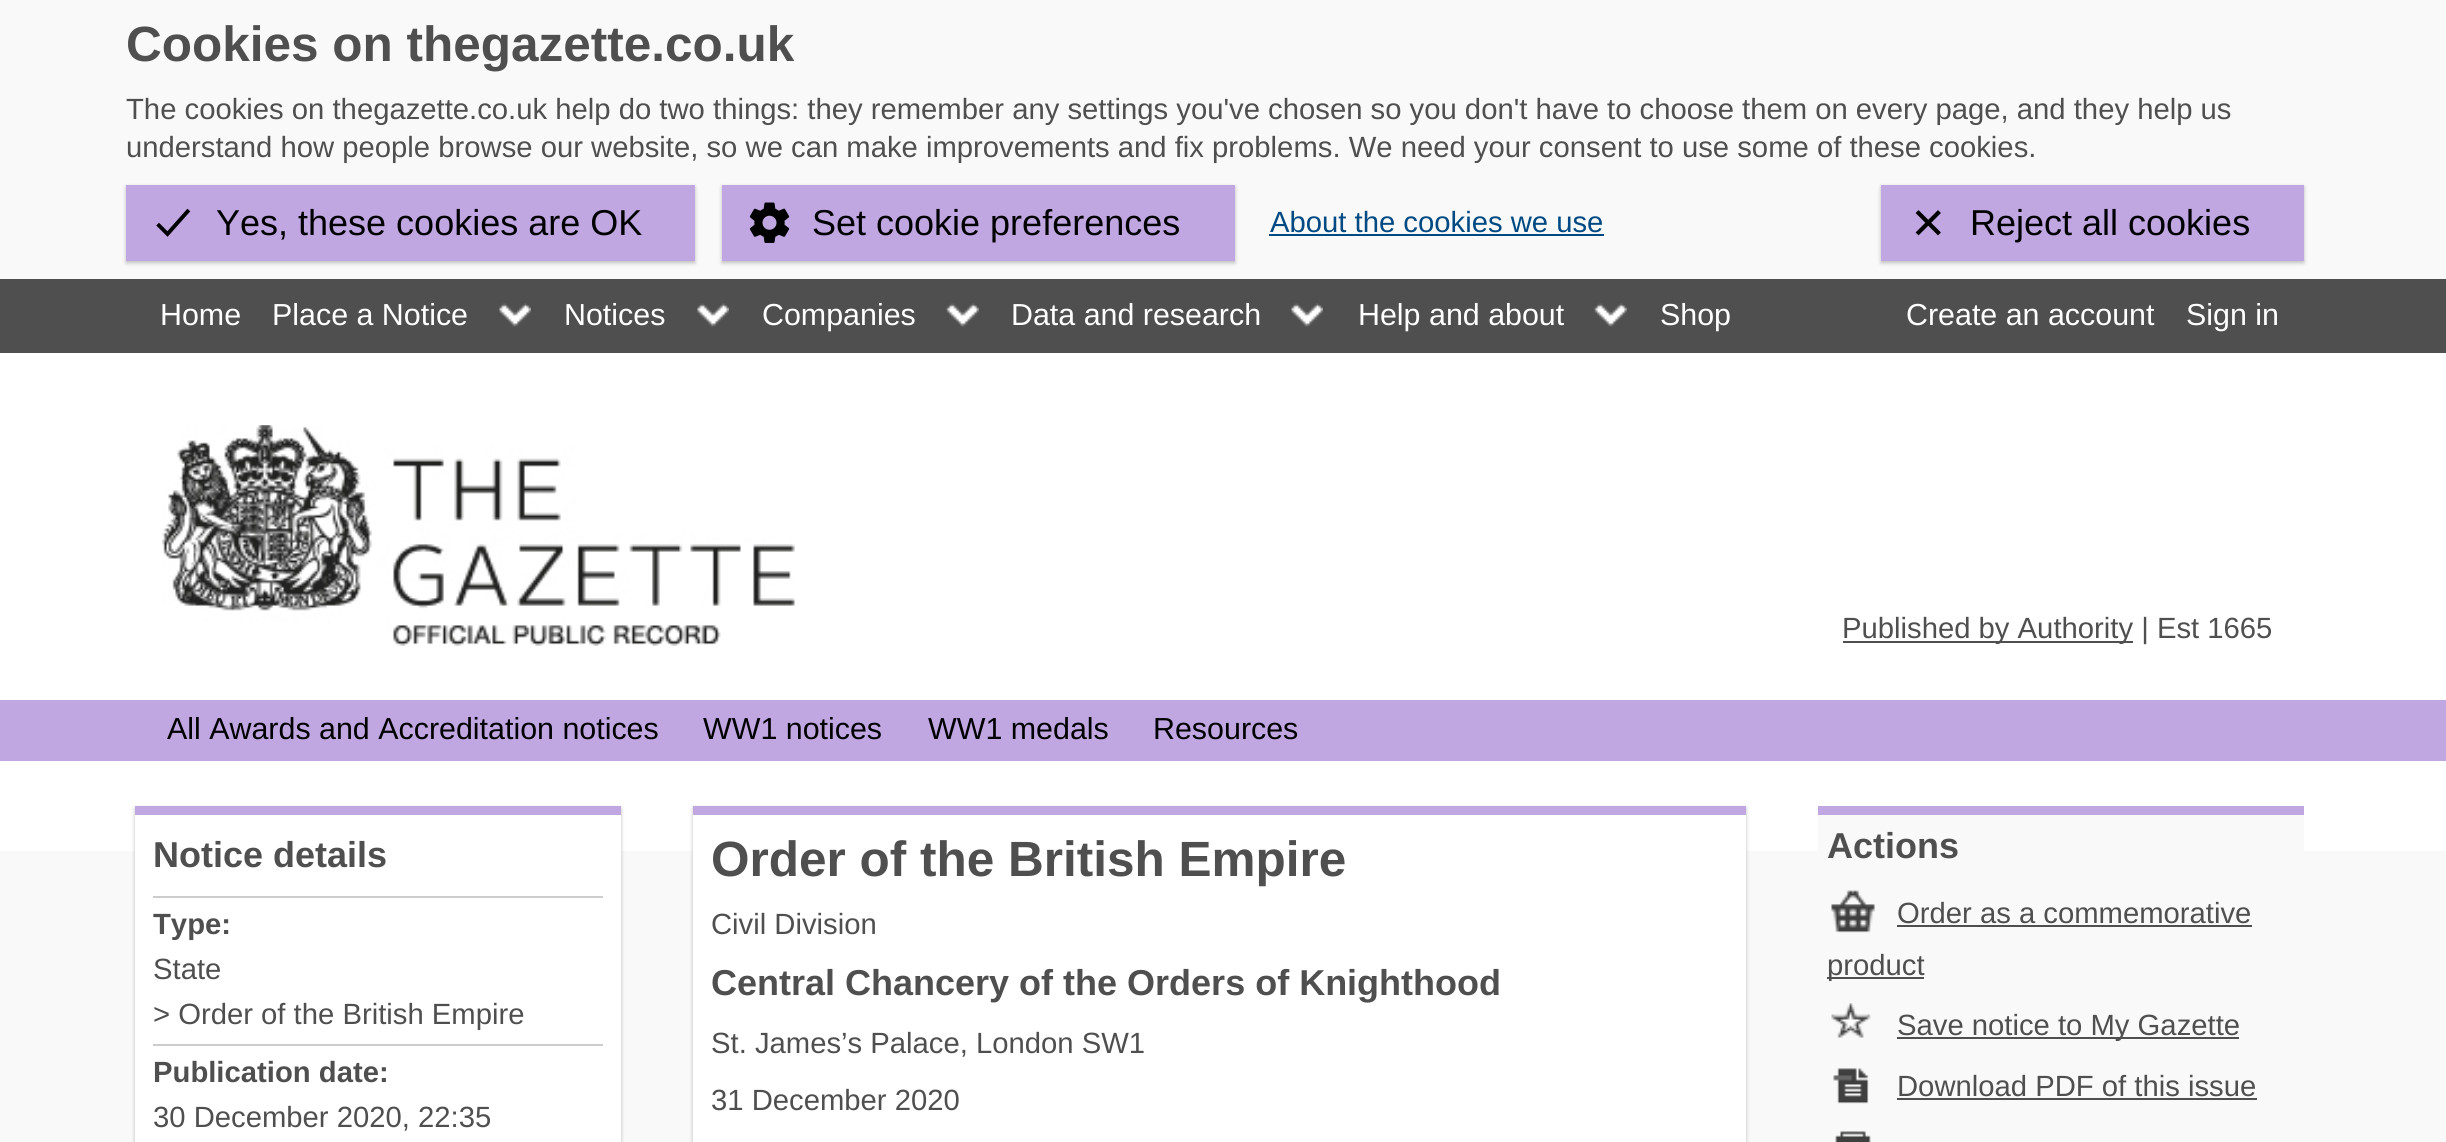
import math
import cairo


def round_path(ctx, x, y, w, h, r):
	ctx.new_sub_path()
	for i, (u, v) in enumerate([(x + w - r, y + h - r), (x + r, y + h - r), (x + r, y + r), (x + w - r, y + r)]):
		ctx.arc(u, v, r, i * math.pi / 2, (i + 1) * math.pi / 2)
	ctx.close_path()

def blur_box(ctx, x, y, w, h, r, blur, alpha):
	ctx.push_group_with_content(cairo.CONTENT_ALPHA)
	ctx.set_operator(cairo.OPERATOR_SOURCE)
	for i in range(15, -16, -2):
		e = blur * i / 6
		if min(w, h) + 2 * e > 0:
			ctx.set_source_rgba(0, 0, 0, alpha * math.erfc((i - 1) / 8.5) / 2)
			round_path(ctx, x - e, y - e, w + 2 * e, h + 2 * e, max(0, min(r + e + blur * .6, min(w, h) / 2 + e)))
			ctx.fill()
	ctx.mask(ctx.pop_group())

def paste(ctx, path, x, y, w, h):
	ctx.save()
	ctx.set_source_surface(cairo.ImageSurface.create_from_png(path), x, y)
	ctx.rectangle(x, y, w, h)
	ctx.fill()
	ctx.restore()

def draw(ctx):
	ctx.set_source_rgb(0.973, 0.973, 0.973)
	ctx.paint()
	ctx.select_font_face('Liberation Sans', cairo.FONT_SLANT_NORMAL, cairo.FONT_WEIGHT_BOLD)
	ctx.set_font_size(49.5)
	ctx.set_source_rgb(0.314, 0.31, 0.31)
	ctx.move_to(126, 61)
	ctx.show_text('Cookies on thegazette.co.uk')
	ctx.select_font_face('Liberation Sans')
	ctx.set_font_size(29.25)
	ctx.move_to(126, 119)
	ctx.show_text('The cookies on thegazette.co.uk help do two things: they remember any settings you\'ve chosen so you don\'t have to choose them on every page, and they help us')
	ctx.move_to(126, 157)
	ctx.show_text('understand how people browse our website, so we can make improvements and fix problems. We need your consent to use some of these cookies.')
	ctx.set_source_rgb(0.196, 0.196, 0.196)
	blur_box(ctx, 126, 187, 569, 76, 0, 2, 0.3)
	ctx.set_source_rgb(0.757, 0.655, 0.886)
	ctx.rectangle(126, 185, 569, 76)
	ctx.fill()
	ctx.new_path()
	ctx.move_to(187.5, 211.5)
	ctx.line_to(167.5, 234)
	ctx.line_to(159, 225.5)
	ctx.set_source_rgb(0, 0, 0)
	ctx.set_line_width(3.9)
	ctx.set_line_cap(cairo.LINE_CAP_SQUARE)
	ctx.stroke()
	ctx.set_font_size(36)
	ctx.move_to(216, 235)
	ctx.show_text('Yes, these cookies are OK')
	ctx.set_source_rgb(0.196, 0.196, 0.196)
	blur_box(ctx, 722, 187, 513, 76, 0, 2, 0.3)
	ctx.set_source_rgb(0.757, 0.655, 0.886)
	ctx.rectangle(722, 185, 513, 76)
	ctx.fill()
	paste(ctx, 'media/1.png', 749, 202, 41, 41)
	ctx.set_source_rgb(0, 0, 0)
	ctx.move_to(812, 235)
	ctx.show_text('Set cookie preferences')
	ctx.set_font_size(29.25)
	ctx.set_source_rgb(0, 0.29, 0.514)
	ctx.move_to(1270, 232)
	ctx.show_text('About the cookies we use')
	ctx.rectangle(1269, 234, 335, 2)
	ctx.fill()
	ctx.set_source_rgb(0.196, 0.196, 0.196)
	blur_box(ctx, 1881, 187, 423, 76, 0, 2, 0.3)
	ctx.set_source_rgb(0.757, 0.655, 0.886)
	ctx.rectangle(1881, 185, 423, 76)
	ctx.fill()
	paste(ctx, 'media/2.png', 1915, 210, 26, 26)
	ctx.set_font_size(36)
	ctx.set_source_rgb(0, 0, 0)
	ctx.move_to(1970, 235)
	ctx.show_text('Reject all cookies')
	ctx.set_source_rgb(0.314, 0.31, 0.31)
	ctx.rectangle(0, 279, 2446, 74)
	ctx.fill()
	ctx.set_font_size(30.4)
	ctx.set_source_rgb(1, 1, 1)
	ctx.move_to(160, 325)
	ctx.show_text('Home')
	ctx.move_to(272, 325)
	ctx.show_text('Place a Notice')
	paste(ctx, 'media/3.png', 499, 303, 32, 24)
	ctx.move_to(564, 325)
	ctx.show_text('Notices')
	paste(ctx, 'media/4.png', 697, 303, 32, 24)
	ctx.move_to(762, 325)
	ctx.show_text('Companies')
	paste(ctx, 'media/5.png', 946, 303, 33, 24)
	ctx.move_to(1011, 325)
	ctx.show_text('Data and research')
	paste(ctx, 'media/4.png', 1291, 303, 32, 24)
	ctx.move_to(1358, 325)
	ctx.show_text('Help and about')
	paste(ctx, 'media/6.png', 1594, 303, 33, 24)
	for x, y, s in [
		(1660, 325, 'Shop'),
		(1906, 325, 'Create an account'),
		(2186, 325, 'Sign in'),
	]:
		ctx.move_to(x, y)
		ctx.show_text(s)
	ctx.rectangle(0, 353, 2446, 347)
	ctx.fill()
	paste(ctx, 'media/7.png', 162, 425, 633, 221)
	ctx.set_source_rgb(0.314, 0.31, 0.31)
	ctx.rectangle(1843, 641, 290, 2)
	ctx.fill()
	ctx.set_font_size(29.25)
	ctx.move_to(1842, 638)
	ctx.show_text('Published by Authority | Est 1665')
	ctx.set_source_rgb(0.757, 0.655, 0.886)
	ctx.rectangle(0, 700, 2446, 61)
	ctx.fill()
	ctx.set_font_size(30.4)
	ctx.set_source_rgb(0, 0, 0)
	for x, y, s in [
		(167, 739, 'All Awards and Accreditation notices'),
		(703, 739, 'WW1 notices'),
		(928, 739, 'WW1 medals'),
		(1153, 739, 'Resources'),
	]:
		ctx.move_to(x, y)
		ctx.show_text(s)
	ctx.set_source_rgb(1, 1, 1)
	ctx.rectangle(0, 761, 2446, 90)
	ctx.fill()
	ctx.set_source_rgb(0.196, 0.196, 0.196)
	blur_box(ctx, 135, 808, 486, 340, 0, 2, 0.3)
	ctx.set_source_rgb(1, 1, 1)
	ctx.rectangle(135, 815, 486, 327)
	ctx.fill()
	ctx.set_source_rgb(0.757, 0.655, 0.886)
	ctx.rectangle(135, 806, 486, 9)
	ctx.fill()
	ctx.select_font_face('Liberation Sans', cairo.FONT_SLANT_NORMAL, cairo.FONT_WEIGHT_BOLD)
	ctx.set_font_size(36)
	ctx.set_source_rgb(0.314, 0.31, 0.31)
	ctx.move_to(153, 867)
	ctx.show_text('Notice details')
	ctx.set_source_rgb(0.8, 0.8, 0.8)
	ctx.rectangle(153, 896, 450, 2)
	ctx.fill()
	ctx.set_font_size(29.25)
	ctx.set_source_rgb(0.314, 0.31, 0.31)
	ctx.move_to(153, 934)
	ctx.show_text('Type:')
	ctx.select_font_face('Liberation Sans')
	ctx.move_to(153, 979)
	ctx.show_text('State')
	ctx.move_to(153, 1024)
	ctx.show_text('> Order of the British Empire')
	ctx.set_source_rgb(0.8, 0.8, 0.8)
	ctx.rectangle(153, 1044, 450, 2)
	ctx.fill()
	ctx.select_font_face('Liberation Sans', cairo.FONT_SLANT_NORMAL, cairo.FONT_WEIGHT_BOLD)
	ctx.set_source_rgb(0.314, 0.31, 0.31)
	ctx.move_to(153, 1082)
	ctx.show_text('Publication date:')
	ctx.select_font_face('Liberation Sans')
	ctx.move_to(153, 1127)
	ctx.show_text('30 December 2020, 22:35')
	ctx.set_source_rgb(0.196, 0.196, 0.196)
	blur_box(ctx, 693, 808, 1053, 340, 0, 2, 0.3)
	ctx.set_source_rgb(1, 1, 1)
	ctx.rectangle(693, 815, 1053, 327)
	ctx.fill()
	ctx.set_source_rgb(0.757, 0.655, 0.886)
	ctx.rectangle(693, 806, 1053, 9)
	ctx.fill()
	ctx.select_font_face('Liberation Sans', cairo.FONT_SLANT_NORMAL, cairo.FONT_WEIGHT_BOLD)
	ctx.set_font_size(49.5)
	ctx.set_source_rgb(0.314, 0.31, 0.31)
	ctx.move_to(711, 876)
	ctx.show_text('Order of the British Empire')
	ctx.select_font_face('Liberation Sans')
	ctx.set_font_size(29.25)
	ctx.move_to(711, 934)
	ctx.show_text('Civil Division')
	ctx.select_font_face('Liberation Sans', cairo.FONT_SLANT_NORMAL, cairo.FONT_WEIGHT_BOLD)
	ctx.set_font_size(36)
	ctx.move_to(711, 995)
	ctx.show_text('Central Chancery of the Orders of Knighthood')
	ctx.select_font_face('Liberation Sans')
	ctx.set_font_size(29.25)
	ctx.move_to(711, 1053)
	ctx.show_text('St. James’s Palace, London SW1')
	ctx.move_to(711, 1110)
	ctx.show_text('31 December 2020')
	ctx.set_source_rgb(0.973, 0.973, 0.973)
	ctx.rectangle(1818, 815, 486, 36)
	ctx.fill()
	ctx.set_source_rgb(0.757, 0.655, 0.886)
	ctx.rectangle(1818, 806, 486, 9)
	ctx.fill()
	ctx.select_font_face('Liberation Sans', cairo.FONT_SLANT_NORMAL, cairo.FONT_WEIGHT_BOLD)
	ctx.set_font_size(36)
	ctx.set_source_rgb(0.314, 0.31, 0.31)
	ctx.move_to(1827, 858)
	ctx.show_text('Actions')
	paste(ctx, 'media/8.png', 1831, 890, 44, 43)
	ctx.select_font_face('Liberation Sans')
	ctx.set_font_size(29.25)
	ctx.move_to(1897, 923)
	ctx.show_text('Order as a commemorative')
	ctx.rectangle(1897, 925, 355, 2)
	ctx.fill()
	ctx.rectangle(1827, 977, 97, 2)
	ctx.fill()
	ctx.move_to(1827, 975)
	ctx.show_text('product')
	paste(ctx, 'media/9.png', 1831, 1003, 40, 35)
	ctx.rectangle(1897, 1037, 342, 2)
	ctx.fill()
	ctx.move_to(1897, 1035)
	ctx.show_text('Save notice to My Gazette')
	paste(ctx, 'media/10.png', 1833, 1068, 36, 36)
	ctx.move_to(1897, 1096)
	ctx.show_text('Download PDF of this issue')
	ctx.rectangle(1897, 1098, 360, 2)
	ctx.fill()
	paste(ctx, 'media/11.png', 1835, 1131, 36, 11)


surface = cairo.ImageSurface(cairo.FORMAT_RGB24, 2446, 1142)
ctx = cairo.Context(surface)
options = cairo.FontOptions()
options.set_hint_metrics(cairo.HINT_METRICS_OFF)
options.set_hint_style(cairo.HINT_STYLE_NONE)
ctx.set_font_options(options)
ctx.set_miter_limit(4)
draw(ctx)
surface.write_to_png('image.png')
